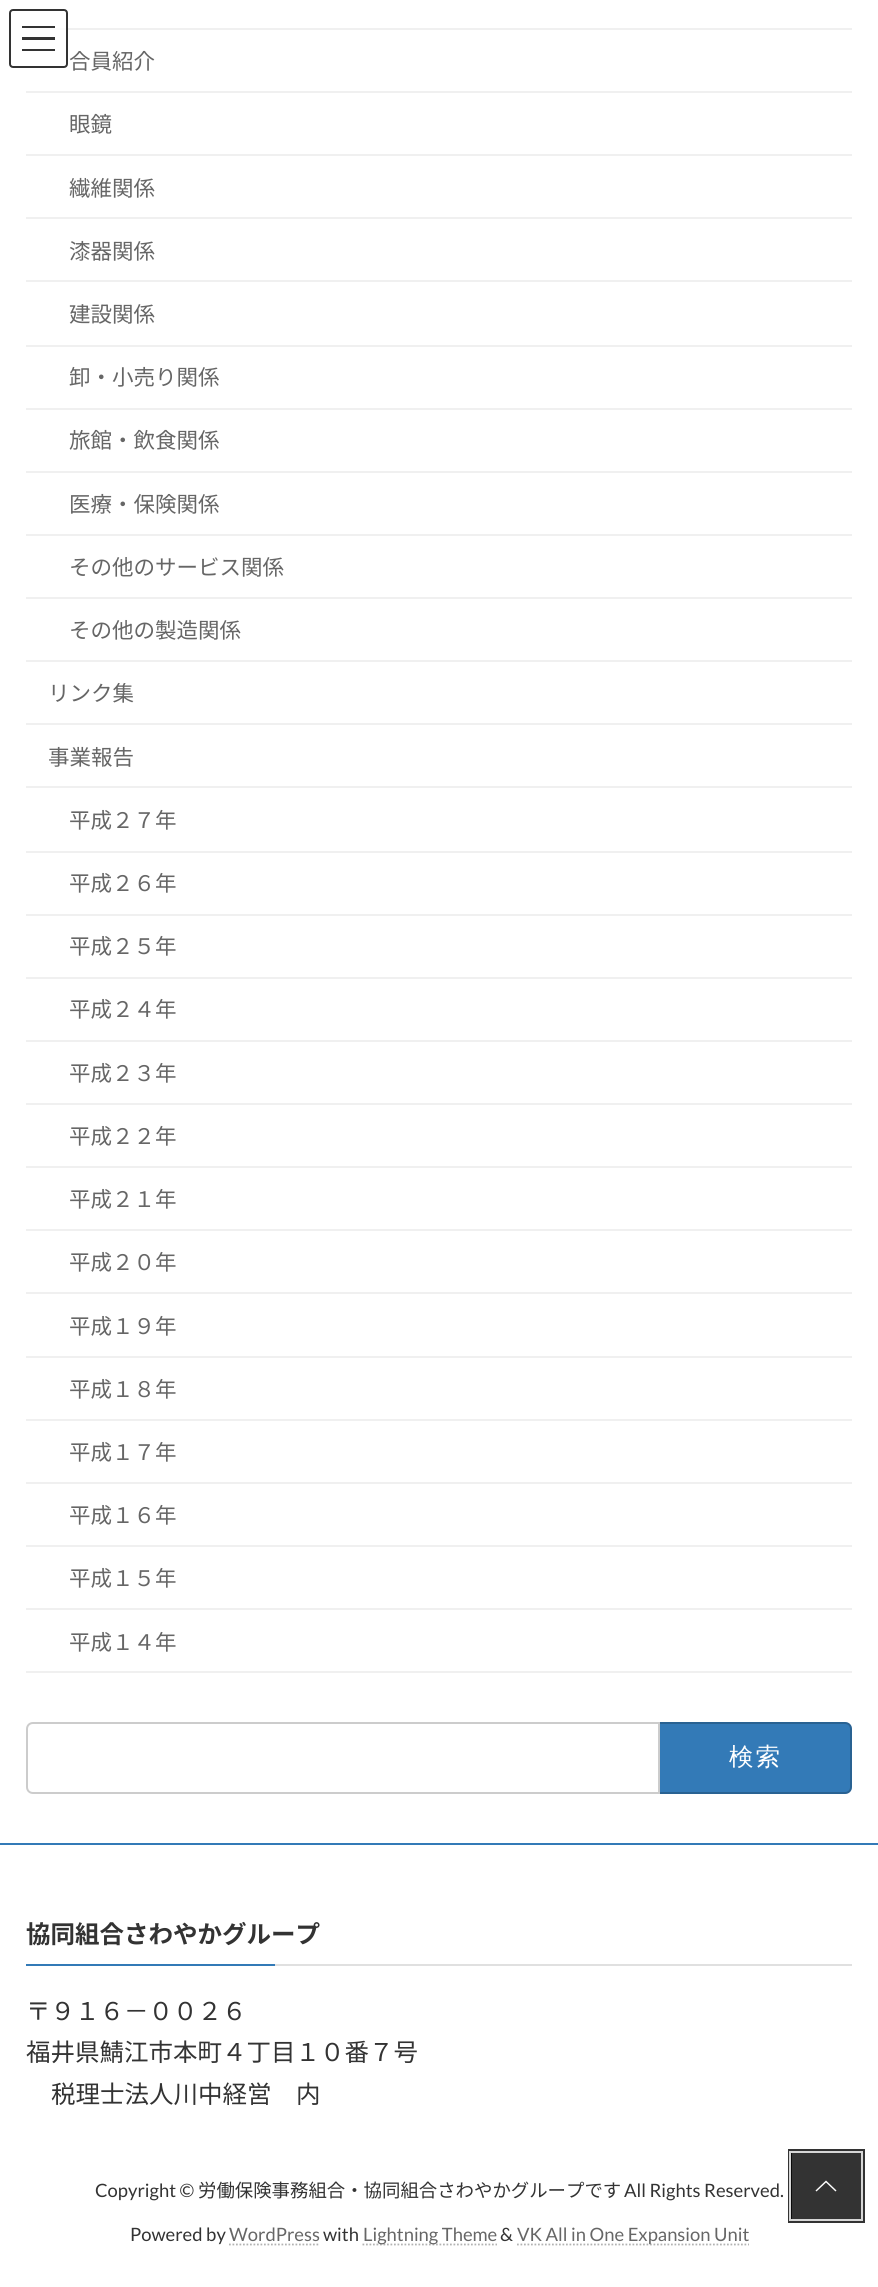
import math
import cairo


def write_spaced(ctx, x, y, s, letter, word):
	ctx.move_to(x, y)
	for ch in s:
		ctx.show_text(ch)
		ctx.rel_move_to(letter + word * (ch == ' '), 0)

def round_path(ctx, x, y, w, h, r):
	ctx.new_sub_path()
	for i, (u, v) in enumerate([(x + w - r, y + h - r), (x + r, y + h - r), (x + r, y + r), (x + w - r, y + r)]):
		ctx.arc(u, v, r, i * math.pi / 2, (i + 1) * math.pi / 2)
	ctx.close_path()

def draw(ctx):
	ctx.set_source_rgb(1, 1, 1)
	ctx.paint()
	ctx.set_source_rgb(0.941, 0.941, 0.941)
	ctx.rectangle(26, 28, 826, 2)
	ctx.fill()
	ctx.set_source_rgba(1, 1, 1, 0.8)
	round_path(ctx, 9, 9, 59, 59, 4)
	ctx.fill()
	ctx.set_source_rgb(0.2, 0.2, 0.2)
	ctx.rectangle(22, 26, 33, 2)
	ctx.rectangle(22, 37, 33, 3)
	ctx.rectangle(22, 49, 33, 2)
	ctx.fill()
	round_path(ctx, 10, 10, 57, 57, 3)
	ctx.stroke()
	ctx.set_source_rgb(0.941, 0.941, 0.941)
	ctx.rectangle(26, 91, 826, 2)
	ctx.fill()
	ctx.select_font_face('Noto Sans JP')
	ctx.set_font_size(21.5)
	ctx.set_source_rgb(0.4, 0.4, 0.4)
	ctx.move_to(69, 69)
	ctx.show_text('合員紹介')
	ctx.set_source_rgb(0.941, 0.941, 0.941)
	ctx.rectangle(26, 154, 826, 2)
	ctx.fill()
	ctx.set_source_rgb(0.4, 0.4, 0.4)
	ctx.move_to(69, 132)
	ctx.show_text('眼鏡')
	ctx.set_source_rgb(0.941, 0.941, 0.941)
	ctx.rectangle(26, 217, 826, 2)
	ctx.fill()
	ctx.set_source_rgb(0.4, 0.4, 0.4)
	ctx.move_to(69, 196)
	ctx.show_text('繊維関係')
	ctx.set_source_rgb(0.941, 0.941, 0.941)
	ctx.rectangle(26, 280, 826, 2)
	ctx.fill()
	ctx.set_source_rgb(0.4, 0.4, 0.4)
	ctx.move_to(69, 259)
	ctx.show_text('漆器関係')
	ctx.set_source_rgb(0.941, 0.941, 0.941)
	ctx.rectangle(26, 345, 826, 2)
	ctx.fill()
	ctx.set_source_rgb(0.4, 0.4, 0.4)
	ctx.move_to(69, 322)
	ctx.show_text('建設関係')
	ctx.set_source_rgb(0.941, 0.941, 0.941)
	ctx.rectangle(26, 408, 826, 2)
	ctx.fill()
	ctx.set_source_rgb(0.4, 0.4, 0.4)
	ctx.move_to(69, 385)
	ctx.show_text('卸・小売り関係')
	ctx.set_source_rgb(0.941, 0.941, 0.941)
	ctx.rectangle(26, 471, 826, 2)
	ctx.fill()
	ctx.set_source_rgb(0.4, 0.4, 0.4)
	ctx.move_to(69, 448)
	ctx.show_text('旅館・飲食関係')
	ctx.set_source_rgb(0.941, 0.941, 0.941)
	ctx.rectangle(26, 534, 826, 2)
	ctx.fill()
	ctx.set_source_rgb(0.4, 0.4, 0.4)
	ctx.move_to(69, 512)
	ctx.show_text('医療・保険関係')
	ctx.set_source_rgb(0.941, 0.941, 0.941)
	ctx.rectangle(26, 597, 826, 2)
	ctx.fill()
	ctx.set_source_rgb(0.4, 0.4, 0.4)
	ctx.move_to(69, 575)
	ctx.show_text('その他のサービス関係')
	ctx.set_source_rgb(0.941, 0.941, 0.941)
	ctx.rectangle(26, 660, 826, 2)
	ctx.fill()
	ctx.set_source_rgb(0.4, 0.4, 0.4)
	ctx.move_to(69, 638)
	ctx.show_text('その他の製造関係')
	ctx.set_source_rgb(0.941, 0.941, 0.941)
	ctx.rectangle(26, 723, 826, 2)
	ctx.fill()
	ctx.set_source_rgb(0.4, 0.4, 0.4)
	ctx.move_to(48, 701)
	ctx.show_text('リンク集')
	ctx.set_source_rgb(0.941, 0.941, 0.941)
	ctx.rectangle(26, 786, 826, 2)
	ctx.fill()
	ctx.set_source_rgb(0.4, 0.4, 0.4)
	ctx.move_to(48, 765)
	ctx.show_text('事業報告')
	ctx.set_source_rgb(0.941, 0.941, 0.941)
	ctx.rectangle(26, 851, 826, 2)
	ctx.fill()
	ctx.set_source_rgb(0.4, 0.4, 0.4)
	ctx.move_to(69, 828)
	ctx.show_text('平成２７年')
	ctx.set_source_rgb(0.941, 0.941, 0.941)
	ctx.rectangle(26, 914, 826, 2)
	ctx.fill()
	ctx.set_source_rgb(0.4, 0.4, 0.4)
	ctx.move_to(69, 891)
	ctx.show_text('平成２６年')
	ctx.set_source_rgb(0.941, 0.941, 0.941)
	ctx.rectangle(26, 977, 826, 2)
	ctx.fill()
	ctx.set_source_rgb(0.4, 0.4, 0.4)
	ctx.move_to(69, 954)
	ctx.show_text('平成２５年')
	ctx.set_source_rgb(0.941, 0.941, 0.941)
	ctx.rectangle(26, 1040, 826, 2)
	ctx.fill()
	ctx.set_source_rgb(0.4, 0.4, 0.4)
	ctx.move_to(69, 1017)
	ctx.show_text('平成２４年')
	ctx.set_source_rgb(0.941, 0.941, 0.941)
	ctx.rectangle(26, 1103, 826, 2)
	ctx.fill()
	ctx.set_source_rgb(0.4, 0.4, 0.4)
	ctx.move_to(69, 1081)
	ctx.show_text('平成２３年')
	ctx.set_source_rgb(0.941, 0.941, 0.941)
	ctx.rectangle(26, 1166, 826, 2)
	ctx.fill()
	ctx.set_source_rgb(0.4, 0.4, 0.4)
	ctx.move_to(69, 1144)
	ctx.show_text('平成２２年')
	ctx.set_source_rgb(0.941, 0.941, 0.941)
	ctx.rectangle(26, 1229, 826, 2)
	ctx.fill()
	ctx.set_source_rgb(0.4, 0.4, 0.4)
	ctx.move_to(69, 1207)
	ctx.show_text('平成２１年')
	ctx.set_source_rgb(0.941, 0.941, 0.941)
	ctx.rectangle(26, 1292, 826, 2)
	ctx.fill()
	ctx.set_source_rgb(0.4, 0.4, 0.4)
	ctx.move_to(69, 1270)
	ctx.show_text('平成２０年')
	ctx.set_source_rgb(0.941, 0.941, 0.941)
	ctx.rectangle(26, 1356, 826, 2)
	ctx.fill()
	ctx.set_source_rgb(0.4, 0.4, 0.4)
	ctx.move_to(69, 1334)
	ctx.show_text('平成１９年')
	ctx.set_source_rgb(0.941, 0.941, 0.941)
	ctx.rectangle(26, 1419, 826, 2)
	ctx.fill()
	ctx.set_source_rgb(0.4, 0.4, 0.4)
	ctx.move_to(69, 1397)
	ctx.show_text('平成１８年')
	ctx.set_source_rgb(0.941, 0.941, 0.941)
	ctx.rectangle(26, 1482, 826, 2)
	ctx.fill()
	ctx.set_source_rgb(0.4, 0.4, 0.4)
	ctx.move_to(69, 1460)
	ctx.show_text('平成１７年')
	ctx.set_source_rgb(0.941, 0.941, 0.941)
	ctx.rectangle(26, 1545, 826, 2)
	ctx.fill()
	ctx.set_source_rgb(0.4, 0.4, 0.4)
	ctx.move_to(69, 1523)
	ctx.show_text('平成１６年')
	ctx.set_source_rgb(0.941, 0.941, 0.941)
	ctx.rectangle(26, 1608, 826, 2)
	ctx.fill()
	ctx.set_source_rgb(0.4, 0.4, 0.4)
	ctx.move_to(69, 1586)
	ctx.show_text('平成１５年')
	ctx.set_source_rgb(0.941, 0.941, 0.941)
	ctx.rectangle(26, 1671, 826, 2)
	ctx.fill()
	ctx.set_source_rgb(0.4, 0.4, 0.4)
	ctx.move_to(69, 1650)
	ctx.show_text('平成１４年')
	ctx.new_path()
	ctx.move_to(33, 1723)
	ctx.line_to(659, 1723)
	ctx.line_to(659, 1793)
	ctx.line_to(33, 1793)
	ctx.curve_to(29.5, 1793, 27, 1790.5, 27, 1787)
	ctx.line_to(27, 1729)
	ctx.curve_to(27, 1725.5, 29.5, 1723, 33, 1723)
	ctx.close_path()
	ctx.set_source_rgb(0.8, 0.8, 0.8)
	ctx.stroke()
	ctx.set_source_rgb(0.2, 0.478, 0.718)
	ctx.new_path()
	ctx.move_to(660, 1722)
	ctx.line_to(845, 1722)
	ctx.curve_to(849, 1722, 852, 1725, 852, 1729)
	ctx.line_to(852, 1787)
	ctx.curve_to(852, 1791, 849, 1794, 845, 1794)
	ctx.line_to(660, 1794)
	ctx.close_path()
	ctx.fill()
	ctx.set_source_rgba(0, 0, 0, 0.2)
	ctx.set_fill_rule(cairo.FILL_RULE_EVEN_ODD)
	ctx.new_path()
	ctx.move_to(660, 1722)
	ctx.line_to(845, 1722)
	ctx.curve_to(849, 1722, 852, 1725, 852, 1729)
	ctx.line_to(852, 1787)
	ctx.curve_to(852, 1791, 849, 1794, 845, 1794)
	ctx.line_to(660, 1794)
	ctx.close_path()
	ctx.move_to(660, 1724)
	ctx.line_to(845, 1724)
	ctx.curve_to(848, 1724, 850, 1726, 850, 1729)
	ctx.line_to(850, 1787)
	ctx.curve_to(850, 1790, 848, 1792, 845, 1792)
	ctx.line_to(660, 1792)
	ctx.close_path()
	ctx.fill()
	ctx.select_font_face('WenQuanYi Zen Hei Medium')
	ctx.set_font_size(24.5)
	ctx.set_source_rgb(1, 1, 1)
	write_spaced(ctx, 729, 1765, '検索', 2, 0)
	ctx.set_source_rgb(0.2, 0.478, 0.718)
	ctx.rectangle(0, 1843, 878, 2)
	ctx.fill()
	ctx.set_source_rgb(0.878, 0.878, 0.878)
	ctx.rectangle(275, 1964, 577, 2)
	ctx.fill()
	ctx.select_font_face('Noto Sans JP', cairo.FONT_SLANT_NORMAL, cairo.FONT_WEIGHT_BOLD)
	ctx.set_source_rgb(0.2, 0.2, 0.2)
	ctx.move_to(26, 1943)
	ctx.show_text('協同組合さわやかグループ')
	ctx.set_source_rgb(0.2, 0.478, 0.718)
	ctx.rectangle(26, 1964, 249, 2)
	ctx.fill()
	ctx.select_font_face('Noto Sans JP')
	ctx.set_source_rgb(0.2, 0.2, 0.2)
	for x, y, s in [
		(26, 2020, '〒９１６－００２６'),
		(26, 2061, '福井県鯖江市本町４丁目１０番７号'),
		(51, 2103, '税理士法人川中経営　内'),
	]:
		ctx.move_to(x, y)
		ctx.show_text(s)
	ctx.select_font_face('Lato')
	ctx.set_font_size(18.4)
	ctx.move_to(95, 2197)
	ctx.show_text('Copyright ©')
	ctx.select_font_face('Noto Sans JP')
	ctx.move_to(198, 2197)
	ctx.show_text('労働保険事務組合・協同組合さわやかグループです')
	ctx.select_font_face('Lato')
	ctx.move_to(624, 2197)
	ctx.show_text('All Rights Reserved.')
	ctx.move_to(130, 2241)
	ctx.show_text('Powered by')
	ctx.set_source_rgb(0.4, 0.4, 0.4)
	ctx.move_to(229, 2241)
	ctx.show_text('WordPress')
	ctx.new_path()
	ctx.move_to(229, 2244.5)
	ctx.line_to(320, 2244.5)
	ctx.set_source_rgb(0.702, 0.702, 0.702)
	ctx.set_line_width(1.8)
	ctx.set_dash([1.75, 1.75])
	ctx.stroke()
	ctx.set_source_rgb(0.2, 0.2, 0.2)
	ctx.move_to(323, 2241)
	ctx.show_text('with')
	ctx.new_path()
	ctx.move_to(362.5, 2244.5)
	ctx.line_to(497, 2244.5)
	ctx.set_source_rgb(0.702, 0.702, 0.702)
	ctx.stroke()
	ctx.set_source_rgb(0.4, 0.4, 0.4)
	ctx.move_to(363, 2241)
	ctx.show_text('Lightning Theme')
	ctx.set_source_rgb(0.2, 0.2, 0.2)
	ctx.move_to(500, 2241)
	ctx.show_text('&')
	ctx.new_path()
	ctx.move_to(517, 2244.5)
	ctx.line_to(749, 2244.5)
	ctx.set_source_rgb(0.702, 0.702, 0.702)
	ctx.stroke()
	ctx.set_source_rgb(0.4, 0.4, 0.4)
	ctx.move_to(517, 2241)
	ctx.show_text('VK All in One Expansion Unit')
	ctx.rectangle(790, 2151, 73, 70)
	ctx.set_source_rgb(0.2, 0.2, 0.2)
	ctx.set_line_width(4)
	ctx.set_dash([])
	ctx.stroke()
	ctx.rectangle(790, 2152, 72, 68)
	ctx.set_source_rgb(0.839, 0.839, 0.839)
	ctx.set_line_width(2)
	ctx.stroke()
	ctx.set_source_rgba(0, 0, 0, 0.8)
	ctx.rectangle(791, 2153, 70, 66)
	ctx.fill()
	ctx.set_source_rgb(1, 1, 1)
	ctx.set_fill_rule(cairo.FILL_RULE_WINDING)
	ctx.new_path()
	ctx.move_to(836.5, 2190.5)
	ctx.line_to(835.5, 2191.5)
	ctx.line_to(826, 2182.5)
	ctx.line_to(816.5, 2191.5)
	ctx.line_to(815.5, 2190.5)
	ctx.line_to(826, 2180.5)
	ctx.close_path()
	ctx.fill()


surface = cairo.ImageSurface(cairo.FORMAT_RGB24, 878, 2287)
ctx = cairo.Context(surface)
options = cairo.FontOptions()
options.set_hint_metrics(cairo.HINT_METRICS_OFF)
options.set_hint_style(cairo.HINT_STYLE_NONE)
ctx.set_font_options(options)
ctx.set_miter_limit(4)
draw(ctx)
surface.write_to_png('image.png')
